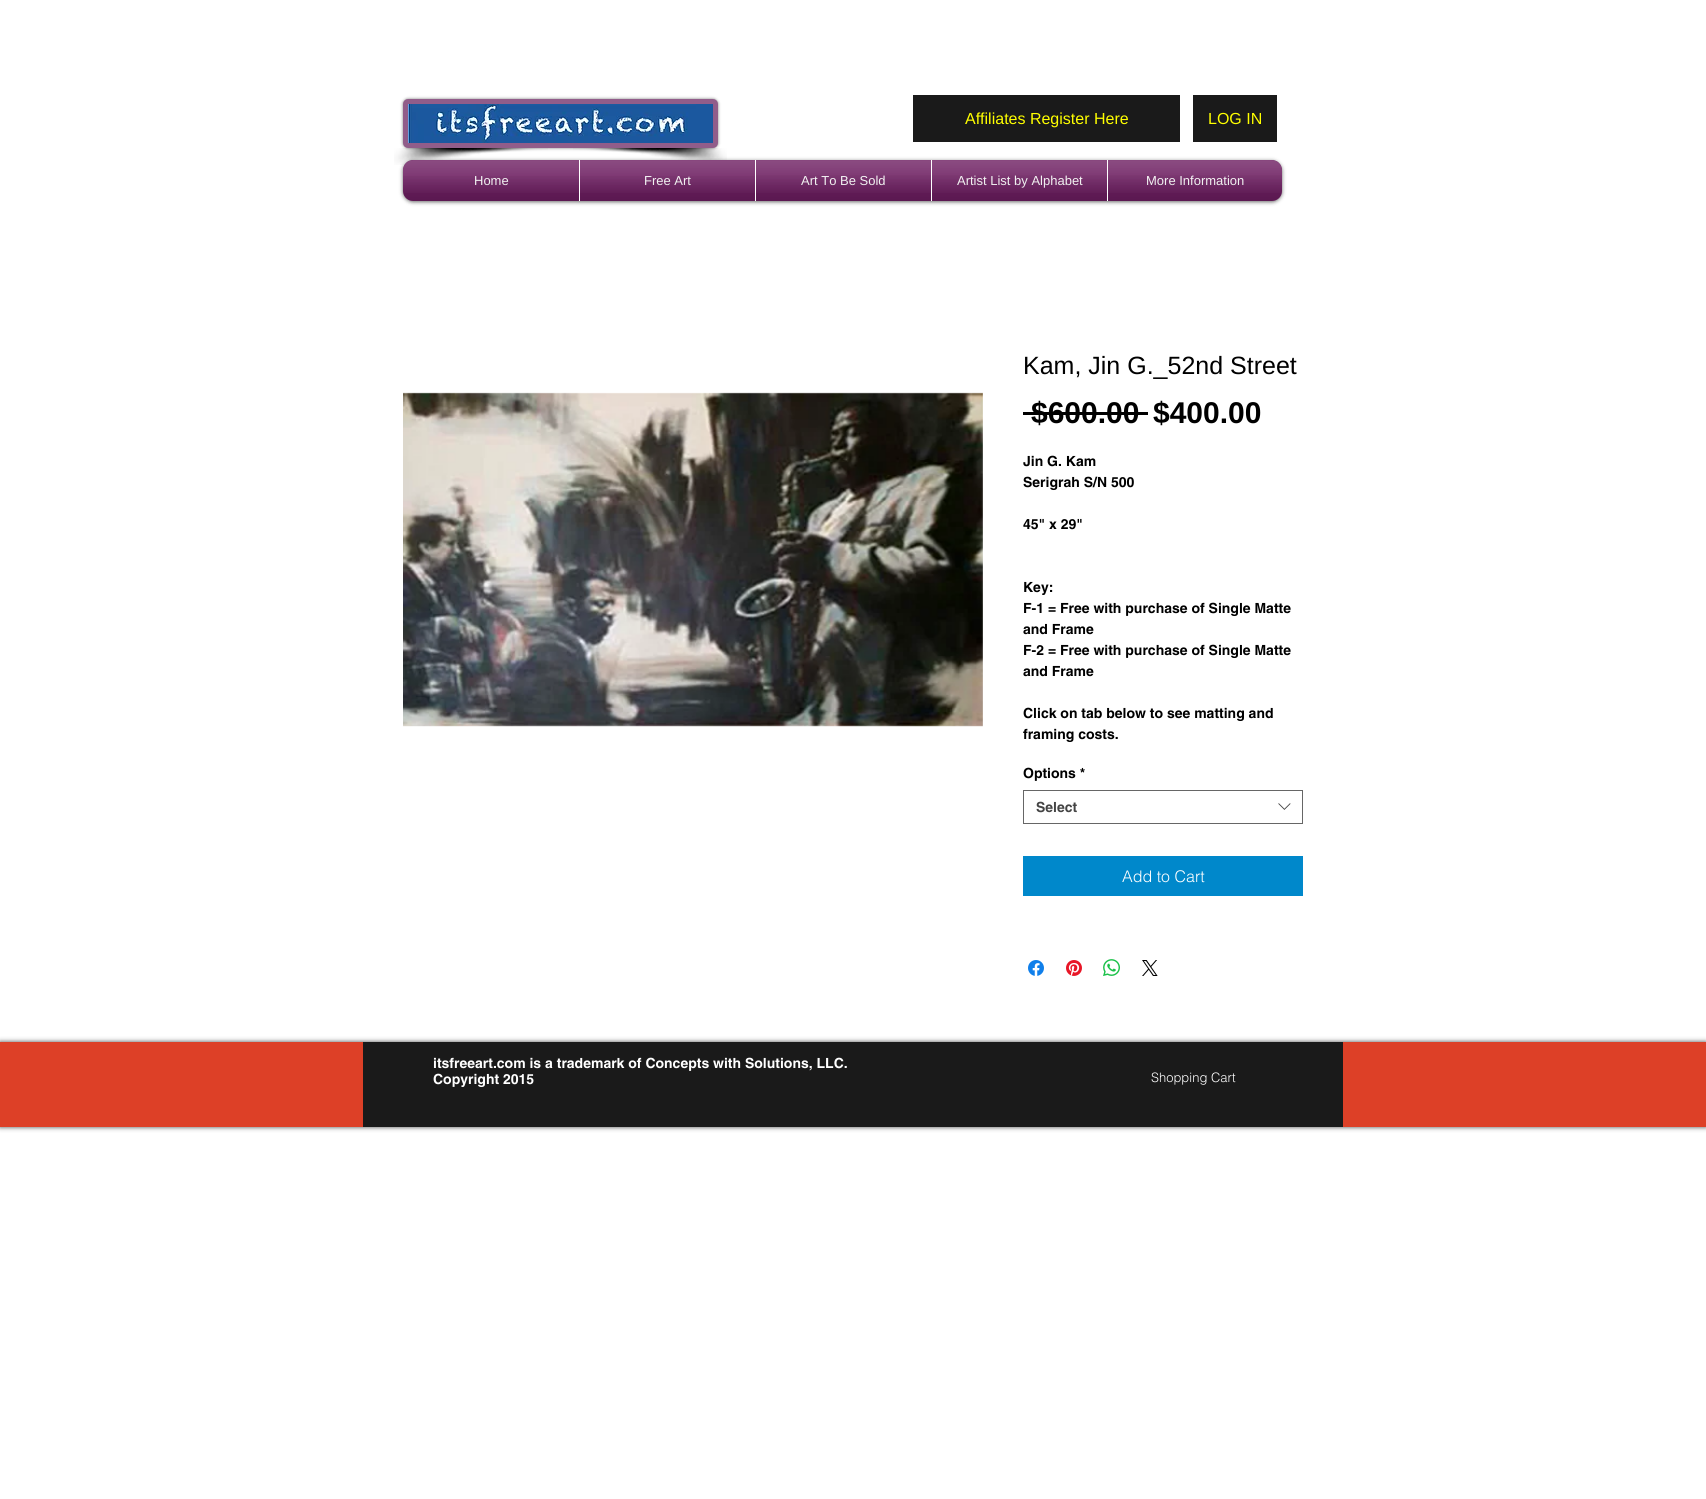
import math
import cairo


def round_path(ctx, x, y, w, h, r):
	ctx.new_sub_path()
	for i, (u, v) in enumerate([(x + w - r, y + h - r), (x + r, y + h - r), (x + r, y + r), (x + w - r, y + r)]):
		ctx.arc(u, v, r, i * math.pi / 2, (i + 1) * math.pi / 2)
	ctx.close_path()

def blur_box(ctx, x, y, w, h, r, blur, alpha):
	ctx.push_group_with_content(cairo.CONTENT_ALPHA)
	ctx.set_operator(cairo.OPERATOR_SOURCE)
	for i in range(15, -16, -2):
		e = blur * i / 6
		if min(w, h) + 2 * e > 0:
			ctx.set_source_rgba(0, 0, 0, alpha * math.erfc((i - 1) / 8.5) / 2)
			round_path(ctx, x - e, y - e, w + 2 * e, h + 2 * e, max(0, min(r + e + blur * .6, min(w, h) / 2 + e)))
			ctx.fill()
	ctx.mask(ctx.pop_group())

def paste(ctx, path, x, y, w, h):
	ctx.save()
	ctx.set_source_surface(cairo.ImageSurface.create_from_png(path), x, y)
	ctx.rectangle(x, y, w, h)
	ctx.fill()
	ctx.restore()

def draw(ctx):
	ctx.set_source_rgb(1, 1, 1)
	ctx.paint()
	ctx.set_source_rgb(0, 0, 0)
	blur_box(ctx, 403, 99, 315, 49, 5, 1.5, 0.5)
	round_path(ctx, 405.5, 101.5, 310, 44, 2.5)
	ctx.set_source_rgb(0.569, 0.365, 0.541)
	ctx.set_line_width(5)
	ctx.stroke()
	paste(ctx, 'media/1.png', 408, 104, 305, 39)
	paste(ctx, 'media/2.png', 394, 148, 154, 17)
	paste(ctx, 'media/3.png', 573, 148, 154, 12)
	ctx.set_source_rgb(0.102, 0.102, 0.102)
	ctx.rectangle(913, 95, 267, 47)
	ctx.fill()
	ctx.select_font_face('Liberation Sans')
	ctx.set_font_size(16)
	ctx.set_source_rgb(1, 1, 0)
	ctx.move_to(965, 124)
	ctx.show_text('Affiliates Register Here')
	ctx.set_source_rgb(0.102, 0.102, 0.102)
	ctx.rectangle(1193, 95, 84, 47)
	ctx.fill()
	ctx.set_source_rgb(1, 1, 0)
	ctx.move_to(1208, 124)
	ctx.show_text('LOG IN')
	ctx.set_source_rgb(0, 0, 0)
	blur_box(ctx, 403, 161, 879, 41, 10, 2, 0.6)
	paste(ctx, 'media/4.png', 403, 160, 879, 32)
	paste(ctx, 'media/5.png', 403, 191, 879, 10)
	ctx.set_source_rgb(0.427, 0.118, 0.38)
	ctx.new_path()
	ctx.move_to(413, 160)
	ctx.line_to(579, 160)
	ctx.line_to(579, 201)
	ctx.line_to(413, 201)
	ctx.curve_to(407.5, 201, 403, 196.5, 403, 191)
	ctx.line_to(403, 170)
	ctx.curve_to(403, 164.5, 407.5, 160, 413, 160)
	ctx.close_path()
	ctx.fill()
	ctx.set_font_size(13)
	ctx.set_source_rgb(1, 1, 1)
	ctx.move_to(474, 185)
	ctx.show_text('Home')
	paste(ctx, 'media/6.png', 403, 160, 176, 33)
	paste(ctx, 'media/7.png', 403, 176, 176, 25)
	ctx.set_source_rgb(0.427, 0.118, 0.38)
	ctx.rectangle(580, 160, 175, 41)
	ctx.fill()
	ctx.set_source_rgb(1, 1, 1)
	ctx.rectangle(579, 160, 1, 41)
	ctx.fill()
	ctx.move_to(644, 185)
	ctx.show_text('Free Art')
	paste(ctx, 'media/8.png', 580, 160, 175, 33)
	paste(ctx, 'media/9.png', 580, 176, 175, 25)
	ctx.set_source_rgb(0.427, 0.118, 0.38)
	ctx.rectangle(756, 160, 175, 41)
	ctx.fill()
	ctx.set_source_rgb(1, 1, 1)
	ctx.rectangle(755, 160, 1, 41)
	ctx.fill()
	ctx.move_to(801, 185)
	ctx.show_text('Art To Be Sold')
	paste(ctx, 'media/10.png', 756, 160, 175, 33)
	paste(ctx, 'media/11.png', 756, 175, 175, 26)
	ctx.set_source_rgb(0.427, 0.118, 0.38)
	ctx.rectangle(932, 160, 175, 41)
	ctx.fill()
	ctx.set_source_rgb(1, 1, 1)
	ctx.rectangle(931, 160, 1, 41)
	ctx.fill()
	ctx.move_to(957, 185)
	ctx.show_text('Artist List by Alphabet')
	paste(ctx, 'media/12.png', 932, 160, 175, 33)
	paste(ctx, 'media/13.png', 932, 175, 175, 26)
	ctx.set_source_rgb(0.427, 0.118, 0.38)
	ctx.new_path()
	ctx.move_to(1107, 160)
	ctx.line_to(1272, 160)
	ctx.curve_to(1277.5, 160, 1282, 164.5, 1282, 170)
	ctx.line_to(1282, 191)
	ctx.curve_to(1282, 196.5, 1277.5, 201, 1272, 201)
	ctx.line_to(1107, 201)
	ctx.close_path()
	ctx.fill()
	ctx.set_source_rgb(1, 1, 1)
	ctx.rectangle(1107, 160, 1, 41)
	ctx.fill()
	ctx.move_to(1146, 185)
	ctx.show_text('More Information')
	paste(ctx, 'media/14.png', 1108, 160, 174, 33)
	paste(ctx, 'media/15.png', 1108, 175, 174, 26)
	paste(ctx, 'media/16.png', 403, 392, 580, 335)
	ctx.set_font_size(25)
	ctx.set_source_rgb(0, 0, 0)
	ctx.move_to(1023, 374)
	ctx.show_text('Kam, Jin G._52nd Street')
	ctx.select_font_face('Liberation Sans', cairo.FONT_SLANT_NORMAL, cairo.FONT_WEIGHT_BOLD)
	ctx.set_font_size(30)
	ctx.move_to(1031, 423)
	ctx.show_text('$600.00')
	ctx.rectangle(1023, 412, 125, 3)
	ctx.fill()
	ctx.move_to(1153, 423)
	ctx.show_text('$400.00')
	ctx.select_font_face('helvetica', cairo.FONT_SLANT_NORMAL, cairo.FONT_WEIGHT_BOLD)
	ctx.set_font_size(14)
	for x, y, s in [
		(1023, 466, 'Jin G. Kam'),
		(1023, 487, 'Serigrah S/N 500'),
		(1023, 529, '45" x 29"'),
		(1023, 592, 'Key:'),
		(1023, 613, 'F-1 = Free with purchase of Single Matte'),
		(1023, 634, 'and Frame'),
		(1023, 655, 'F-2 = Free with purchase of Single Matte'),
		(1023, 676, 'and Frame'),
		(1023, 718, 'Click on tab below to see matting and'),
		(1023, 739, 'framing costs.'),
		(1023, 778, 'Options *'),
	]:
		ctx.move_to(x, y)
		ctx.show_text(s)
	ctx.rectangle(1023.5, 790.5, 279, 33)
	ctx.set_source_rgb(0.4, 0.4, 0.4)
	ctx.set_line_width(1)
	ctx.stroke()
	ctx.set_source_rgb(0.267, 0.267, 0.267)
	ctx.move_to(1036, 812)
	ctx.show_text('Select')
	paste(ctx, 'media/17.png', 1278, 803, 13, 7)
	ctx.set_source_rgb(0, 0.533, 0.796)
	ctx.rectangle(1023, 856, 280, 40)
	ctx.fill()
	ctx.select_font_face('helvetica Light')
	ctx.set_font_size(16)
	ctx.set_source_rgb(1, 1, 1)
	ctx.move_to(1122, 882)
	ctx.show_text('Add to Cart')
	paste(ctx, 'media/18.png', 1028, 960, 16, 16)
	paste(ctx, 'media/19.png', 1066, 960, 16, 16)
	paste(ctx, 'media/20.png', 1103, 959, 17, 17)
	paste(ctx, 'media/21.png', 1142, 960, 16, 16)
	ctx.set_source_rgb(0, 0, 0)
	blur_box(ctx, 0, 1042, 1706, 85, 0, 2.5, 0.7)
	ctx.set_source_rgb(0.867, 0.251, 0.153)
	ctx.rectangle(0, 1042, 1706, 85)
	ctx.fill()
	ctx.set_source_rgb(0.102, 0.102, 0.102)
	ctx.rectangle(363, 1042, 980, 85)
	ctx.fill()
	ctx.select_font_face('helvetica', cairo.FONT_SLANT_NORMAL, cairo.FONT_WEIGHT_BOLD)
	ctx.set_font_size(14)
	ctx.set_source_rgb(1, 1, 1)
	ctx.move_to(433, 1068)
	ctx.show_text('itsfreeart.com is a trademark of Concepts with Solutions, LLC.')
	ctx.move_to(433, 1084)
	ctx.show_text('Copyright 2015')
	ctx.select_font_face('helvetica Light')
	ctx.set_font_size(13)
	ctx.move_to(1151, 1082)
	ctx.show_text('Shopping Cart')


surface = cairo.ImageSurface(cairo.FORMAT_RGB24, 1706, 1499)
ctx = cairo.Context(surface)
options = cairo.FontOptions()
options.set_hint_metrics(cairo.HINT_METRICS_OFF)
options.set_hint_style(cairo.HINT_STYLE_NONE)
ctx.set_font_options(options)
ctx.set_miter_limit(4)
draw(ctx)
surface.write_to_png('image.png')
